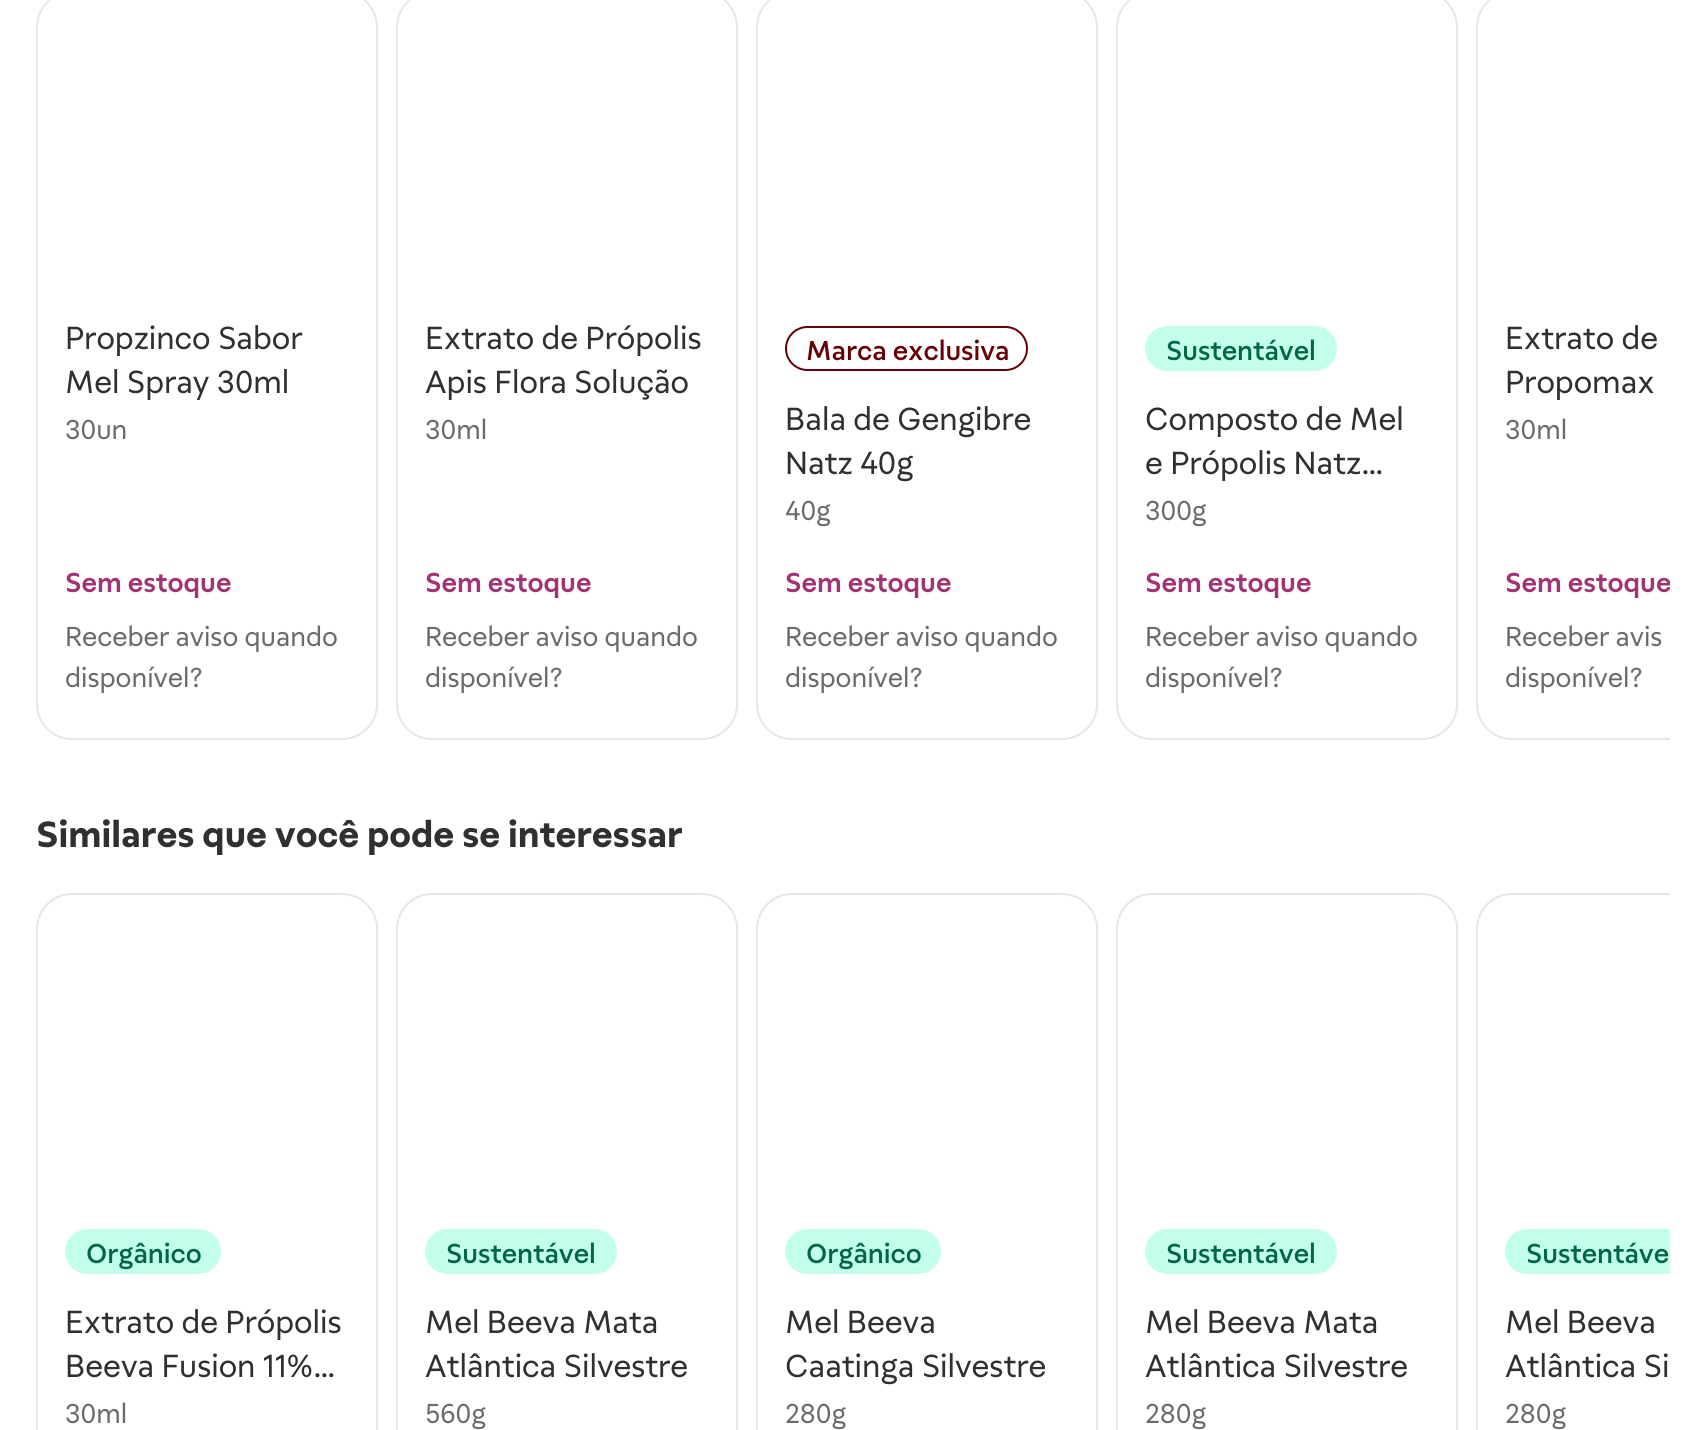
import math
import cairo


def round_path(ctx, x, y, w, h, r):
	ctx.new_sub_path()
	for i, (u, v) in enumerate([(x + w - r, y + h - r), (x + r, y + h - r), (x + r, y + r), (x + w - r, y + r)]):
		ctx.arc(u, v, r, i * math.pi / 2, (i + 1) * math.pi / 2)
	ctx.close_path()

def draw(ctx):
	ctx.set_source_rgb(1, 1, 1)
	ctx.paint()
	round_path(ctx, 37, -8, 340, 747, 35)
	ctx.set_source_rgb(0.902, 0.902, 0.902)
	ctx.stroke()
	ctx.select_font_face('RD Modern')
	ctx.set_font_size(31.5)
	ctx.set_source_rgb(0.188, 0.188, 0.188)
	ctx.move_to(65, 349)
	ctx.show_text('Propzinco Sabor')
	ctx.move_to(65, 393)
	ctx.show_text('Mel Spray 30ml')
	ctx.set_font_size(27)
	ctx.set_source_rgb(0.42, 0.42, 0.42)
	ctx.move_to(65, 439)
	ctx.show_text('30un')
	ctx.select_font_face('RD Modern SemiBold')
	ctx.set_source_rgb(0.635, 0.204, 0.463)
	ctx.move_to(65, 592)
	ctx.show_text('Sem estoque')
	ctx.select_font_face('RD Modern')
	ctx.set_source_rgb(0.42, 0.42, 0.42)
	ctx.move_to(65, 646)
	ctx.show_text('Receber aviso quando')
	ctx.move_to(65, 687)
	ctx.show_text('disponível?')
	round_path(ctx, 397, -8, 340, 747, 35)
	ctx.set_source_rgb(0.902, 0.902, 0.902)
	ctx.stroke()
	ctx.set_font_size(31.5)
	ctx.set_source_rgb(0.188, 0.188, 0.188)
	ctx.move_to(425, 349)
	ctx.show_text('Extrato de Própolis')
	ctx.move_to(425, 393)
	ctx.show_text('Apis Flora Solução')
	ctx.set_font_size(27)
	ctx.set_source_rgb(0.42, 0.42, 0.42)
	ctx.move_to(425, 439)
	ctx.show_text('30ml')
	ctx.select_font_face('RD Modern SemiBold')
	ctx.set_source_rgb(0.635, 0.204, 0.463)
	ctx.move_to(425, 592)
	ctx.show_text('Sem estoque')
	ctx.select_font_face('RD Modern')
	ctx.set_source_rgb(0.42, 0.42, 0.42)
	ctx.move_to(425, 646)
	ctx.show_text('Receber aviso quando')
	ctx.move_to(425, 687)
	ctx.show_text('disponível?')
	round_path(ctx, 757, -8, 340, 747, 35)
	ctx.set_source_rgb(0.902, 0.902, 0.902)
	ctx.stroke()
	round_path(ctx, 786, 327, 241, 43, 21.5)
	ctx.set_source_rgb(0.4, 0, 0.031)
	ctx.stroke()
	ctx.select_font_face('RD Modern Medium')
	ctx.move_to(806, 360)
	ctx.show_text('Marca exclusiva')
	ctx.select_font_face('RD Modern')
	ctx.set_font_size(31.5)
	ctx.set_source_rgb(0.188, 0.188, 0.188)
	ctx.move_to(785, 430)
	ctx.show_text('Bala de Gengibre')
	ctx.move_to(785, 474)
	ctx.show_text('Natz 40g')
	ctx.set_font_size(27)
	ctx.set_source_rgb(0.42, 0.42, 0.42)
	ctx.move_to(785, 520)
	ctx.show_text('40g')
	ctx.select_font_face('RD Modern SemiBold')
	ctx.set_source_rgb(0.635, 0.204, 0.463)
	ctx.move_to(785, 592)
	ctx.show_text('Sem estoque')
	ctx.select_font_face('RD Modern')
	ctx.set_source_rgb(0.42, 0.42, 0.42)
	ctx.move_to(785, 646)
	ctx.show_text('Receber aviso quando')
	ctx.move_to(785, 687)
	ctx.show_text('disponível?')
	round_path(ctx, 1117, -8, 340, 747, 35)
	ctx.set_source_rgb(0.902, 0.902, 0.902)
	ctx.stroke()
	ctx.set_source_rgb(0.761, 1, 0.922)
	round_path(ctx, 1146, 327, 190, 43, 21.5)
	ctx.fill_preserve()
	ctx.stroke()
	ctx.select_font_face('RD Modern Medium')
	ctx.set_source_rgb(0, 0.4, 0.267)
	ctx.move_to(1166, 360)
	ctx.show_text('Sustentável')
	ctx.select_font_face('RD Modern')
	ctx.set_font_size(31.5)
	ctx.set_source_rgb(0.188, 0.188, 0.188)
	ctx.move_to(1145, 430)
	ctx.show_text('Composto de Mel')
	ctx.move_to(1145, 474)
	ctx.show_text('e Própolis Natz…')
	ctx.set_font_size(27)
	ctx.set_source_rgb(0.42, 0.42, 0.42)
	ctx.move_to(1145, 520)
	ctx.show_text('300g')
	ctx.select_font_face('RD Modern SemiBold')
	ctx.set_source_rgb(0.635, 0.204, 0.463)
	ctx.move_to(1145, 592)
	ctx.show_text('Sem estoque')
	ctx.select_font_face('RD Modern')
	ctx.set_source_rgb(0.42, 0.42, 0.42)
	ctx.move_to(1145, 646)
	ctx.show_text('Receber aviso quando')
	ctx.move_to(1145, 687)
	ctx.show_text('disponível?')
	ctx.save()
	ctx.rectangle(36, 0, 1634, 740)
	ctx.clip()
	round_path(ctx, 1477, -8, 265, 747, 35)
	ctx.set_source_rgb(0.902, 0.902, 0.902)
	ctx.stroke()
	ctx.restore()
	ctx.set_font_size(31.5)
	ctx.set_source_rgb(0.188, 0.188, 0.188)
	ctx.move_to(1505, 349)
	ctx.show_text('Extrato de')
	ctx.move_to(1505, 393)
	ctx.show_text('Propomax')
	ctx.set_font_size(27)
	ctx.set_source_rgb(0.42, 0.42, 0.42)
	ctx.move_to(1505, 439)
	ctx.show_text('30ml')
	ctx.save()
	ctx.rectangle(36, 0, 1634, 740)
	ctx.clip()
	ctx.select_font_face('RD Modern SemiBold')
	ctx.set_source_rgb(0.635, 0.204, 0.463)
	ctx.move_to(1505, 592)
	ctx.show_text('Sem estoque')
	ctx.restore()
	ctx.move_to(1505, 646)
	ctx.show_text('Receber avis')
	ctx.move_to(1505, 687)
	ctx.show_text('disponível?')
	ctx.select_font_face('RD Modern', cairo.FONT_SLANT_NORMAL, cairo.FONT_WEIGHT_BOLD)
	ctx.set_font_size(36)
	ctx.set_source_rgb(0.188, 0.188, 0.188)
	ctx.move_to(36, 847)
	ctx.show_text('Similares que você pode se interessar')
	round_path(ctx, 37, 894, 340, 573, 35)
	ctx.set_source_rgb(0.902, 0.902, 0.902)
	ctx.stroke()
	ctx.set_source_rgb(0.761, 1, 0.922)
	round_path(ctx, 66, 1230, 154, 43, 21.5)
	ctx.fill_preserve()
	ctx.stroke()
	ctx.select_font_face('RD Modern Medium')
	ctx.set_font_size(27)
	ctx.set_source_rgb(0, 0.4, 0.267)
	ctx.move_to(86, 1263)
	ctx.show_text('Orgânico')
	ctx.select_font_face('RD Modern')
	ctx.set_font_size(31.5)
	ctx.set_source_rgb(0.188, 0.188, 0.188)
	ctx.move_to(65, 1333)
	ctx.show_text('Extrato de Própolis')
	ctx.move_to(65, 1377)
	ctx.show_text('Beeva Fusion 11%…')
	ctx.set_font_size(27)
	ctx.set_source_rgb(0.42, 0.42, 0.42)
	ctx.move_to(65, 1423)
	ctx.show_text('30ml')
	round_path(ctx, 397, 894, 340, 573, 35)
	ctx.set_source_rgb(0.902, 0.902, 0.902)
	ctx.stroke()
	ctx.set_source_rgb(0.761, 1, 0.922)
	round_path(ctx, 426, 1230, 190, 43, 21.5)
	ctx.fill_preserve()
	ctx.stroke()
	ctx.select_font_face('RD Modern Medium')
	ctx.set_source_rgb(0, 0.4, 0.267)
	ctx.move_to(446, 1263)
	ctx.show_text('Sustentável')
	ctx.select_font_face('RD Modern')
	ctx.set_font_size(31.5)
	ctx.set_source_rgb(0.188, 0.188, 0.188)
	ctx.move_to(425, 1333)
	ctx.show_text('Mel Beeva Mata')
	ctx.move_to(425, 1377)
	ctx.show_text('Atlântica Silvestre')
	ctx.set_font_size(27)
	ctx.set_source_rgb(0.42, 0.42, 0.42)
	ctx.move_to(425, 1423)
	ctx.show_text('560g')
	round_path(ctx, 757, 894, 340, 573, 35)
	ctx.set_source_rgb(0.902, 0.902, 0.902)
	ctx.stroke()
	ctx.set_source_rgb(0.761, 1, 0.922)
	round_path(ctx, 786, 1230, 154, 43, 21.5)
	ctx.fill_preserve()
	ctx.stroke()
	ctx.select_font_face('RD Modern Medium')
	ctx.set_source_rgb(0, 0.4, 0.267)
	ctx.move_to(806, 1263)
	ctx.show_text('Orgânico')
	ctx.select_font_face('RD Modern')
	ctx.set_font_size(31.5)
	ctx.set_source_rgb(0.188, 0.188, 0.188)
	ctx.move_to(785, 1333)
	ctx.show_text('Mel Beeva')
	ctx.move_to(785, 1377)
	ctx.show_text('Caatinga Silvestre')
	ctx.set_font_size(27)
	ctx.set_source_rgb(0.42, 0.42, 0.42)
	ctx.move_to(785, 1423)
	ctx.show_text('280g')
	round_path(ctx, 1117, 894, 340, 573, 35)
	ctx.set_source_rgb(0.902, 0.902, 0.902)
	ctx.stroke()
	ctx.set_source_rgb(0.761, 1, 0.922)
	round_path(ctx, 1146, 1230, 190, 43, 21.5)
	ctx.fill_preserve()
	ctx.stroke()
	ctx.select_font_face('RD Modern Medium')
	ctx.set_source_rgb(0, 0.4, 0.267)
	ctx.move_to(1166, 1263)
	ctx.show_text('Sustentável')
	ctx.select_font_face('RD Modern')
	ctx.set_font_size(31.5)
	ctx.set_source_rgb(0.188, 0.188, 0.188)
	ctx.move_to(1145, 1333)
	ctx.show_text('Mel Beeva Mata')
	ctx.move_to(1145, 1377)
	ctx.show_text('Atlântica Silvestre')
	ctx.set_font_size(27)
	ctx.set_source_rgb(0.42, 0.42, 0.42)
	ctx.move_to(1145, 1423)
	ctx.show_text('280g')
	ctx.save()
	ctx.rectangle(36, 893, 1634, 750)
	ctx.clip()
	round_path(ctx, 1477, 894, 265, 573, 35)
	ctx.set_source_rgb(0.902, 0.902, 0.902)
	ctx.stroke()
	ctx.restore()
	ctx.set_source_rgb(0.761, 1, 0.922)
	ctx.new_path()
	ctx.move_to(1527.5, 1229)
	ctx.line_to(1670, 1229)
	ctx.line_to(1670, 1274)
	ctx.line_to(1527.5, 1274)
	ctx.curve_to(1515, 1274, 1505, 1264, 1505, 1251.5)
	ctx.curve_to(1505, 1239, 1515, 1229, 1527.5, 1229)
	ctx.close_path()
	ctx.fill()
	ctx.save()
	ctx.rectangle(36, 893, 1634, 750)
	ctx.clip()
	round_path(ctx, 1506, 1230, 190, 43, 21.5)
	ctx.stroke()
	ctx.restore()
	ctx.select_font_face('RD Modern Medium')
	ctx.set_source_rgb(0, 0.4, 0.267)
	ctx.move_to(1526, 1263)
	ctx.show_text('Sustentáve')
	ctx.select_font_face('RD Modern')
	ctx.set_font_size(31.5)
	ctx.set_source_rgb(0.188, 0.188, 0.188)
	ctx.move_to(1505, 1333)
	ctx.show_text('Mel Beeva')
	ctx.move_to(1505, 1377)
	ctx.show_text('Atlântica Si')
	ctx.set_font_size(27)
	ctx.set_source_rgb(0.42, 0.42, 0.42)
	ctx.move_to(1505, 1423)
	ctx.show_text('280g')


surface = cairo.ImageSurface(cairo.FORMAT_RGB24, 1705, 1430)
ctx = cairo.Context(surface)
options = cairo.FontOptions()
options.set_hint_metrics(cairo.HINT_METRICS_OFF)
options.set_hint_style(cairo.HINT_STYLE_NONE)
ctx.set_font_options(options)
ctx.set_miter_limit(4)
draw(ctx)
surface.write_to_png('image.png')
